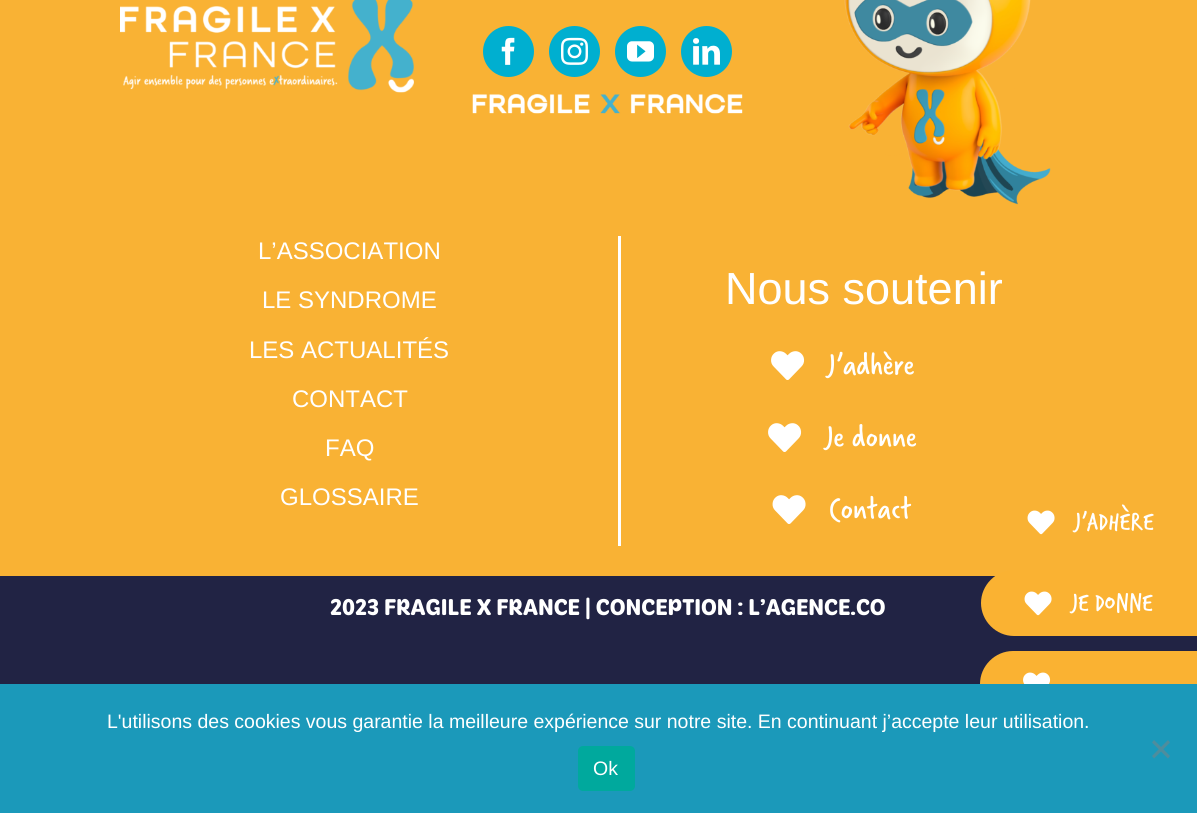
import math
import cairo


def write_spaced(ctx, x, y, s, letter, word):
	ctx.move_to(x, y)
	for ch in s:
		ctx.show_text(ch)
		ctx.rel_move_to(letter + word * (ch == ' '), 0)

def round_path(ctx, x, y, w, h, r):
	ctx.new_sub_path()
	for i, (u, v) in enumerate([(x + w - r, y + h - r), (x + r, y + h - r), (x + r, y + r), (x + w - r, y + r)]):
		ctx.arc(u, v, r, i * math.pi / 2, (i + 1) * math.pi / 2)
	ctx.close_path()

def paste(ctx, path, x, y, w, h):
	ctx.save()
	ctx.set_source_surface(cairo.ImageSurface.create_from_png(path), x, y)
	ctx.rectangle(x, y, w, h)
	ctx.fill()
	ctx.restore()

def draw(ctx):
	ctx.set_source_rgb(0.976, 0.698, 0.204)
	ctx.paint()
	paste(ctx, 'media/1.png', 120, 0, 294, 93)
	ctx.set_source_rgb(0, 0.686, 0.816)
	ctx.arc(508.5, 51.5, 25.5, 0, 2 * math.pi)
	ctx.fill()
	paste(ctx, 'media/2.png', 501, 37, 14, 28)
	ctx.arc(574.5, 51.5, 25.5, 0, 2 * math.pi)
	ctx.fill()
	paste(ctx, 'media/3.png', 561, 37, 27, 28)
	ctx.arc(640.5, 51.5, 25.5, 0, 2 * math.pi)
	ctx.fill()
	paste(ctx, 'media/4.png', 627, 41, 27, 21)
	ctx.arc(706.5, 51.5, 25.5, 0, 2 * math.pi)
	ctx.fill()
	paste(ctx, 'media/5.png', 693, 38, 27, 27)
	paste(ctx, 'media/6.png', 472, 94, 271, 20)
	paste(ctx, 'media/7.png', 844, 0, 207, 205)
	ctx.select_font_face('Liberation Sans')
	ctx.set_font_size(24)
	ctx.set_source_rgb(1, 1, 1)
	for x, y, s in [
		(258, 259, 'L’ASSOCIATION'),
		(262, 308, 'LE SYNDROME'),
		(249, 358, 'LES ACTUALITÉS'),
		(292, 407, 'CONTACT'),
		(325, 456, 'FAQ'),
		(280, 505, 'GLOSSAIRE'),
	]:
		ctx.move_to(x, y)
		ctx.show_text(s)
	ctx.rectangle(618, 236, 3, 310)
	ctx.fill()
	ctx.set_font_size(45)
	ctx.move_to(725, 304)
	ctx.show_text('Nous soutenir')
	paste(ctx, 'media/8.png', 771, 351, 34, 29)
	ctx.select_font_face('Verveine')
	ctx.set_font_size(33)
	ctx.move_to(827, 374)
	ctx.show_text('J’adhère')
	paste(ctx, 'media/8.png', 768, 423, 34, 29)
	ctx.move_to(825, 446)
	ctx.show_text('Je donne')
	paste(ctx, 'media/9.png', 772, 495, 34, 29)
	ctx.move_to(829, 518)
	ctx.show_text('Contact')
	ctx.set_source_rgb(0.129, 0.137, 0.267)
	ctx.rectangle(0, 576, 1197, 108)
	ctx.fill()
	ctx.select_font_face('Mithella', cairo.FONT_SLANT_NORMAL, cairo.FONT_WEIGHT_BOLD)
	ctx.set_font_size(24)
	ctx.set_source_rgb(1, 1, 1)
	ctx.move_to(330, 615)
	ctx.show_text('2023 FRAGILE X FRANCE | CONCEPTION : L’AGENCE.CO')
	paste(ctx, 'media/10.png', 1027, 510, 28, 25)
	ctx.select_font_face('Verveine')
	ctx.set_font_size(27)
	ctx.move_to(1074, 529)
	ctx.show_text('J’ADHÈRE')
	ctx.set_source_rgb(0.98, 0.698, 0.196)
	ctx.new_path()
	ctx.move_to(1014, 570)
	ctx.line_to(1197, 570)
	ctx.line_to(1197, 636)
	ctx.line_to(1014, 636)
	ctx.curve_to(996, 636, 981, 621, 981, 603)
	ctx.curve_to(981, 585, 996, 570, 1014, 570)
	ctx.close_path()
	ctx.fill()
	paste(ctx, 'media/10.png', 1024, 591, 28, 25)
	ctx.set_source_rgb(1, 1, 1)
	write_spaced(ctx, 1071, 610, 'JE DONNE', 0, -1)
	ctx.set_source_rgb(0.98, 0.698, 0.196)
	ctx.new_path()
	ctx.move_to(1013, 651)
	ctx.line_to(1197, 651)
	ctx.line_to(1197, 717)
	ctx.line_to(1013, 717)
	ctx.curve_to(995, 717, 980, 702, 980, 684)
	ctx.curve_to(980, 666, 995, 651, 1013, 651)
	ctx.close_path()
	ctx.fill()
	paste(ctx, 'media/11.png', 1023, 672, 28, 12)
	ctx.set_source_rgb(0.106, 0.6, 0.729)
	ctx.rectangle(0, 684, 1197, 129)
	ctx.fill()
	ctx.select_font_face('Liberation Sans')
	ctx.set_font_size(19.5)
	ctx.set_source_rgb(1, 1, 1)
	ctx.move_to(107, 728)
	ctx.show_text('L\'utilisons des cookies vous garantie la meilleure expérience sur notre site. En continuant j’accepte leur utilisation.')
	ctx.set_source_rgb(0.306, 0.553, 0.616)
	ctx.new_path()
	ctx.move_to(1168, 740)
	ctx.line_to(1170, 742.5)
	ctx.line_to(1154, 758.5)
	ctx.line_to(1152, 756)
	ctx.close_path()
	ctx.fill()
	ctx.new_path()
	ctx.move_to(1152, 742.5)
	ctx.line_to(1154, 740)
	ctx.line_to(1170, 756)
	ctx.line_to(1168, 758.5)
	ctx.close_path()
	ctx.fill()
	ctx.set_source_rgb(0, 0.663, 0.616)
	round_path(ctx, 578, 746, 57, 45, 5)
	ctx.fill()
	ctx.set_source_rgb(1, 1, 1)
	ctx.move_to(593, 775)
	ctx.show_text('Ok')


surface = cairo.ImageSurface(cairo.FORMAT_RGB24, 1197, 813)
ctx = cairo.Context(surface)
options = cairo.FontOptions()
options.set_hint_metrics(cairo.HINT_METRICS_OFF)
options.set_hint_style(cairo.HINT_STYLE_NONE)
ctx.set_font_options(options)
ctx.set_miter_limit(4)
draw(ctx)
surface.write_to_png('image.png')
